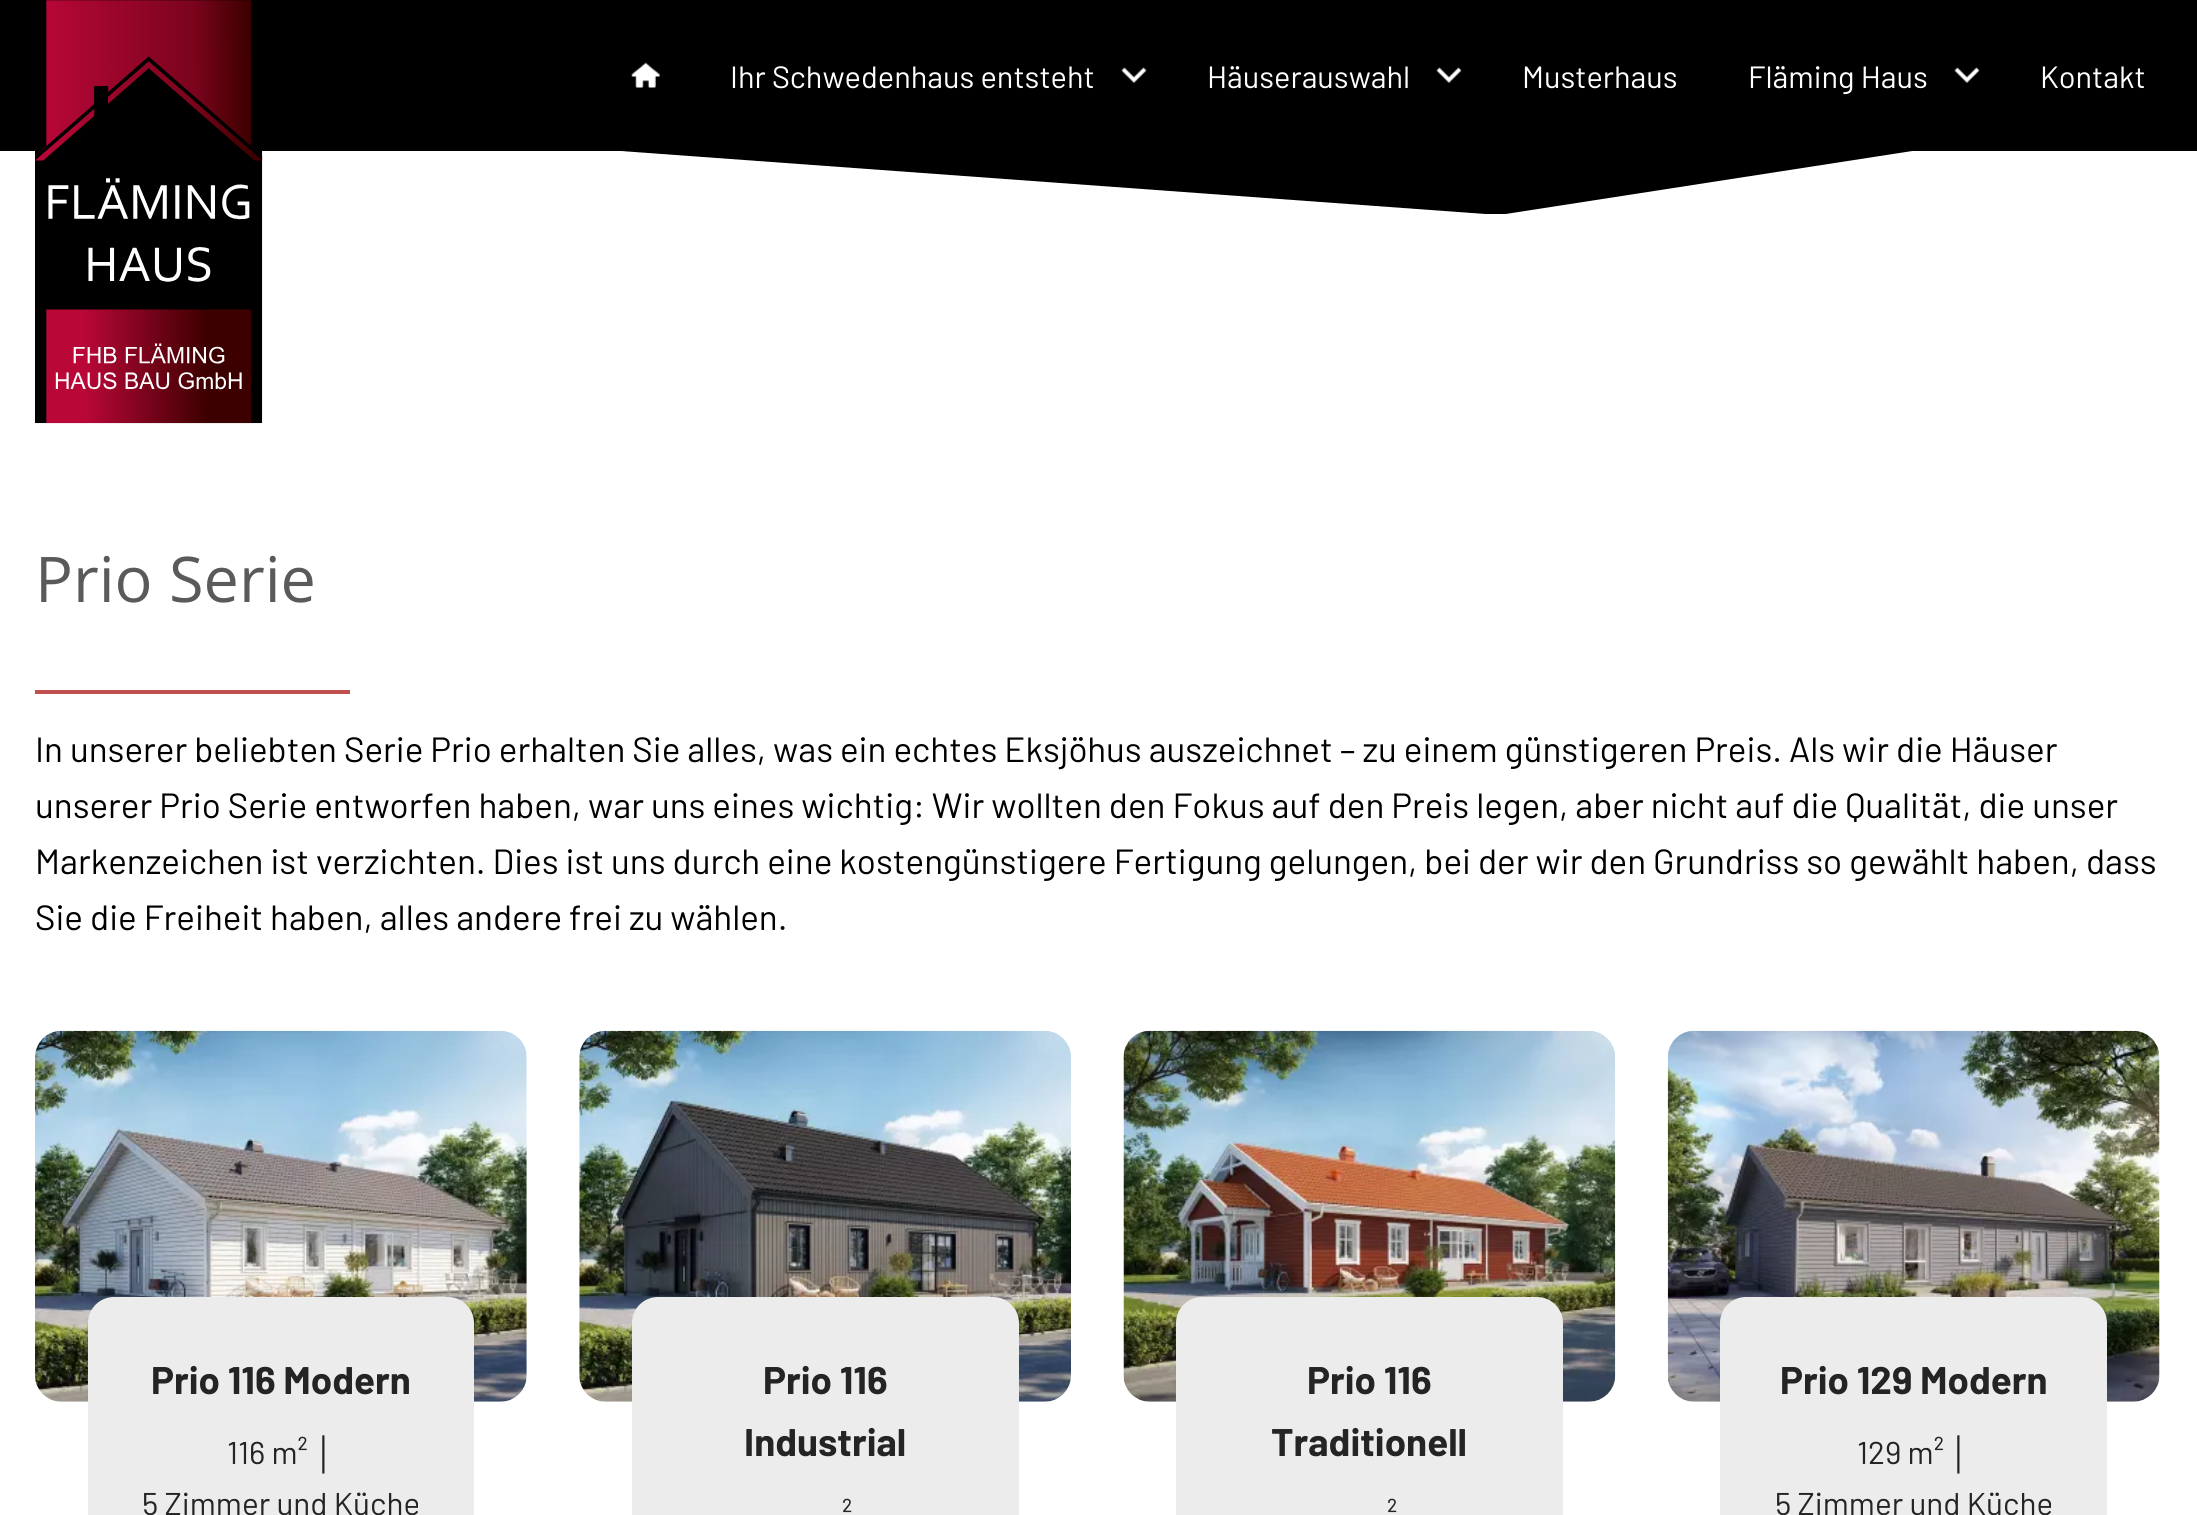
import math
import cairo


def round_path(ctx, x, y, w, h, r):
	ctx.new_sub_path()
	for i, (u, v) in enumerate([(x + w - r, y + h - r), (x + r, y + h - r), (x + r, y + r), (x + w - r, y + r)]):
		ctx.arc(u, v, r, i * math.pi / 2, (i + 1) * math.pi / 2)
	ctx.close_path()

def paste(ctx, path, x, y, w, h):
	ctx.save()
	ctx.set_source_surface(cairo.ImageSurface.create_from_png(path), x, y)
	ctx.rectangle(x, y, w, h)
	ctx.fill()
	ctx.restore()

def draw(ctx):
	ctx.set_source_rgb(1, 1, 1)
	ctx.paint()
	ctx.save()
	ctx.rectangle(0, 107, 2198, 107)
	ctx.clip()
	ctx.set_source_rgb(0, 0, 0)
	ctx.new_path()
	ctx.move_to(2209, 105)
	ctx.line_to(1499, 215)
	ctx.line_to(-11, 105)
	ctx.close_path()
	ctx.fill()
	ctx.restore()
	ctx.set_source_rgb(0, 0, 0)
	ctx.rectangle(0, 0, 2197, 151)
	ctx.fill()
	paste(ctx, 'media/1.png', 35, 0, 228, 424)
	paste(ctx, 'media/2.png', 631, 62, 29, 26)
	paste(ctx, 'media/3.png', 1121, 67, 26, 17)
	ctx.select_font_face('Barlow')
	ctx.set_font_size(30.75)
	ctx.set_source_rgb(1, 1, 1)
	ctx.move_to(730, 88)
	ctx.show_text('Ihr Schwedenhaus entsteht')
	paste(ctx, 'media/3.png', 1436, 67, 26, 17)
	ctx.move_to(1207, 88)
	ctx.show_text('Häuserauswahl')
	ctx.move_to(1522, 88)
	ctx.show_text('Musterhaus')
	paste(ctx, 'media/3.png', 1954, 67, 26, 17)
	ctx.move_to(1748, 88)
	ctx.show_text('Fläming Haus')
	ctx.move_to(2040, 88)
	ctx.show_text('Kontakt')
	ctx.select_font_face('Open Sans')
	ctx.set_font_size(63)
	ctx.set_source_rgb(0.353, 0.353, 0.353)
	ctx.move_to(35, 602)
	ctx.show_text('Prio Serie')
	ctx.set_source_rgb(0.753, 0.314, 0.302)
	ctx.rectangle(35, 690, 315, 4)
	ctx.fill()
	ctx.select_font_face('Barlow')
	ctx.set_font_size(35)
	ctx.set_source_rgb(0, 0, 0)
	for x, y, s in [
		(35, 762, 'In unserer beliebten Serie Prio erhalten Sie alles, was ein echtes Eksjöhus auszeichnet – zu einem günstigeren Preis. Als wir die Häuser'),
		(35, 818, 'unserer Prio Serie entworfen haben, war uns eines wichtig: Wir wollten den Fokus auf den Preis legen, aber nicht auf die Qualität, die unser'),
		(35, 874, 'Markenzeichen ist verzichten. Dies ist uns durch eine kostengünstigere Fertigung gelungen, bei der wir den Grundriss so gewählt haben, dass'),
		(35, 930, 'Sie die Freiheit haben, alles andere frei zu wählen.'),
	]:
		ctx.move_to(x, y)
		ctx.show_text(s)
	paste(ctx, 'media/4.png', 35, 1030, 492, 372)
	ctx.set_source_rgb(0.922, 0.922, 0.922)
	round_path(ctx, 88, 1297, 386, 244, 26)
	ctx.fill()
	ctx.select_font_face('Barlow', cairo.FONT_SLANT_NORMAL, cairo.FONT_WEIGHT_BOLD)
	ctx.set_font_size(38.5)
	ctx.set_source_rgb(0.141, 0.141, 0.141)
	ctx.move_to(151, 1394)
	ctx.show_text('Prio 116 Modern')
	ctx.select_font_face('Barlow')
	ctx.set_font_size(31.5)
	ctx.move_to(227, 1464)
	ctx.show_text('116 m²')
	ctx.select_font_face('Liberation Sans')
	ctx.move_to(315, 1464)
	ctx.show_text('│')
	ctx.select_font_face('Barlow')
	ctx.move_to(142, 1515)
	ctx.show_text('5 Zimmer und Küche')
	paste(ctx, 'media/5.png', 579, 1030, 492, 372)
	ctx.set_source_rgb(0.922, 0.922, 0.922)
	round_path(ctx, 632, 1297, 387, 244, 26)
	ctx.fill()
	ctx.select_font_face('Barlow', cairo.FONT_SLANT_NORMAL, cairo.FONT_WEIGHT_BOLD)
	ctx.set_font_size(38.5)
	ctx.set_source_rgb(0.141, 0.141, 0.141)
	ctx.move_to(763, 1394)
	ctx.show_text('Prio 116')
	ctx.move_to(744, 1456)
	ctx.show_text('Industrial')
	ctx.select_font_face('Barlow')
	ctx.set_font_size(31.5)
	ctx.move_to(842, 1526)
	ctx.show_text('²')
	paste(ctx, 'media/6.png', 1123, 1030, 493, 372)
	ctx.set_source_rgb(0.922, 0.922, 0.922)
	round_path(ctx, 1176, 1297, 387, 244, 26)
	ctx.fill()
	ctx.select_font_face('Barlow', cairo.FONT_SLANT_NORMAL, cairo.FONT_WEIGHT_BOLD)
	ctx.set_font_size(38.5)
	ctx.set_source_rgb(0.141, 0.141, 0.141)
	ctx.move_to(1307, 1394)
	ctx.show_text('Prio 116')
	ctx.move_to(1271, 1456)
	ctx.show_text('Traditionell')
	ctx.select_font_face('Barlow')
	ctx.set_font_size(31.5)
	ctx.move_to(1387, 1526)
	ctx.show_text('²')
	paste(ctx, 'media/7.png', 1667, 1030, 493, 372)
	ctx.set_source_rgb(0.922, 0.922, 0.922)
	round_path(ctx, 1720, 1297, 387, 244, 26)
	ctx.fill()
	ctx.select_font_face('Barlow', cairo.FONT_SLANT_NORMAL, cairo.FONT_WEIGHT_BOLD)
	ctx.set_font_size(38.5)
	ctx.set_source_rgb(0.141, 0.141, 0.141)
	ctx.move_to(1780, 1394)
	ctx.show_text('Prio 129 Modern')
	ctx.select_font_face('Barlow')
	ctx.set_font_size(31.5)
	ctx.move_to(1857, 1464)
	ctx.show_text('129 m²')
	ctx.select_font_face('Liberation Sans')
	ctx.move_to(1950, 1464)
	ctx.show_text('│')
	ctx.select_font_face('Barlow')
	ctx.move_to(1775, 1515)
	ctx.show_text('5 Zimmer und Küche')


surface = cairo.ImageSurface(cairo.FORMAT_RGB24, 2197, 1515)
ctx = cairo.Context(surface)
options = cairo.FontOptions()
options.set_hint_metrics(cairo.HINT_METRICS_OFF)
options.set_hint_style(cairo.HINT_STYLE_NONE)
ctx.set_font_options(options)
ctx.set_miter_limit(4)
draw(ctx)
surface.write_to_png('image.png')
